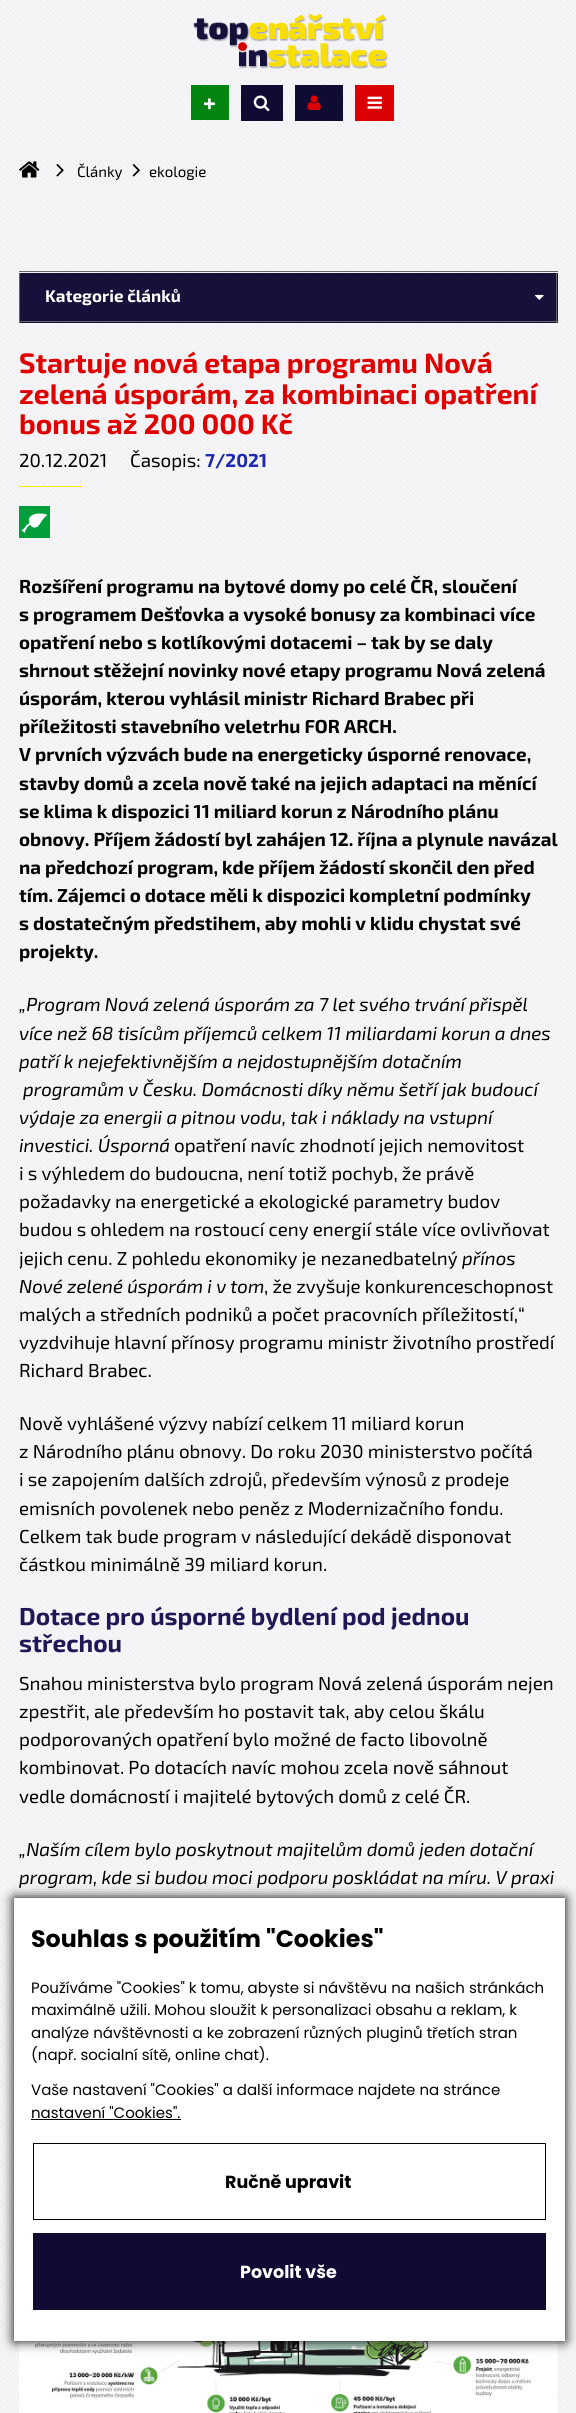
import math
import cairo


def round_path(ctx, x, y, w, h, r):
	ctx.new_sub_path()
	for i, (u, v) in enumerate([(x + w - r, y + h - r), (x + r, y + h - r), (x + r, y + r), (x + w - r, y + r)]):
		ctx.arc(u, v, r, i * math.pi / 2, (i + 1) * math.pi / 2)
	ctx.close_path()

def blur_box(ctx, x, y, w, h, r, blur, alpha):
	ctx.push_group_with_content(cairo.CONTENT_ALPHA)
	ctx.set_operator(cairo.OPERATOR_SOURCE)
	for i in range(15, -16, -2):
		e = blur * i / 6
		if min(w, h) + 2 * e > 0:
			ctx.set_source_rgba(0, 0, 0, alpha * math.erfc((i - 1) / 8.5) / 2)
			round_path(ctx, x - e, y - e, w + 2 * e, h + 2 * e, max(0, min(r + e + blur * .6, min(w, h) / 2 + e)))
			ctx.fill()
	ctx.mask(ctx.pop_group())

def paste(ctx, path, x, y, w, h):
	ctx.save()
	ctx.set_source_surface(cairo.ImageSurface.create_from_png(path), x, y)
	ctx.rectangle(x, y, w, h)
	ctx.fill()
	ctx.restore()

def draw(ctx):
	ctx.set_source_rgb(1, 1, 1)
	ctx.paint()
	paste(ctx, 'media/1.png', 0, 0, 576, 2413)
	paste(ctx, 'media/2.png', 193, 13, 195, 56)
	ctx.set_source_rgb(0.008, 0.518, 0.063)
	ctx.rectangle(191, 85, 38, 35)
	ctx.fill()
	ctx.select_font_face('Exo 2', cairo.FONT_SLANT_NORMAL, cairo.FONT_WEIGHT_BOLD)
	ctx.set_font_size(24)
	ctx.set_source_rgb(1, 1, 1)
	ctx.move_to(203, 111)
	ctx.show_text('+')
	ctx.set_source_rgb(0.063, 0.043, 0.2)
	ctx.rectangle(241, 85, 42, 36)
	ctx.fill()
	paste(ctx, 'media/3.png', 253, 95, 17, 17)
	ctx.rectangle(295, 85, 48, 36)
	ctx.fill()
	paste(ctx, 'media/4.png', 307, 95, 14, 15)
	ctx.set_source_rgb(0.855, 0, 0.012)
	ctx.rectangle(355, 85, 39, 36)
	ctx.fill()
	paste(ctx, 'media/5.png', 367, 96, 15, 13)
	paste(ctx, 'media/6.png', 19, 161, 21, 17)
	paste(ctx, 'media/7.png', 56, 164, 8, 13)
	ctx.select_font_face('Exo 2')
	ctx.set_font_size(15)
	ctx.set_source_rgb(0, 0, 0)
	ctx.move_to(77, 177)
	ctx.show_text('Články')
	paste(ctx, 'media/8.png', 132, 164, 8, 13)
	ctx.move_to(149, 177)
	ctx.show_text('ekologie')
	ctx.set_source_rgb(0.4, 0.4, 0.4)
	ctx.rectangle(19, 271, 539, 1)
	ctx.fill()
	ctx.set_source_rgb(0.086, 0.067, 0.227)
	ctx.rectangle(20, 273, 538, 50)
	ctx.fill()
	ctx.set_source_rgb(0.4, 0.4, 0.4)
	ctx.rectangle(556, 273, 1, 50)
	ctx.rectangle(19, 321, 539, 1)
	ctx.rectangle(19, 273, 1, 50)
	ctx.fill()
	ctx.select_font_face('Exo 2', cairo.FONT_SLANT_NORMAL, cairo.FONT_WEIGHT_BOLD)
	ctx.set_font_size(17)
	ctx.set_source_rgb(1, 1, 1)
	ctx.move_to(45, 302)
	ctx.show_text('Kategorie článků')
	paste(ctx, 'media/9.png', 535, 294, 9, 6)
	ctx.set_font_size(28.1)
	ctx.set_source_rgb(0.882, 0, 0)
	for x, y, s in [
		(19, 373, 'Startuje nová etapa programu Nová'),
		(19, 404, 'zelená úsporám, za kombinaci opatření'),
		(19, 434, 'bonus až 200 000 Kč'),
	]:
		ctx.move_to(x, y)
		ctx.show_text(s)
	ctx.select_font_face('Exo 2')
	ctx.set_font_size(18.75)
	ctx.set_source_rgb(0, 0, 0)
	ctx.move_to(19, 467)
	ctx.show_text('20.12.2021')
	ctx.move_to(130, 467)
	ctx.show_text('Časopis:')
	ctx.select_font_face('Exo 2', cairo.FONT_SLANT_NORMAL, cairo.FONT_WEIGHT_BOLD)
	ctx.set_source_rgb(0.118, 0.161, 0.694)
	ctx.move_to(205, 467)
	ctx.show_text('7/2021')
	ctx.set_source_rgb(0.98, 0.918, 0)
	ctx.rectangle(19, 486, 62, 1)
	ctx.fill()
	ctx.set_source_rgb(0, 0.624, 0.235)
	ctx.rectangle(19, 506, 31, 32)
	ctx.fill()
	paste(ctx, 'media/10.png', 21, 513, 27, 20)
	ctx.set_source_rgb(0, 0, 0)
	for x, y, s in [
		(19, 593, 'Rozšíření programu na bytové domy po celé ČR, sloučení'),
		(19, 621, 's programem Dešťovka a vysoké bonusy za kombinaci více'),
		(19, 649, 'opatření nebo s kotlíkovými dotacemi – tak by se daly'),
		(19, 677, 'shrnout stěžejní novinky nové etapy programu Nová zelená'),
		(19, 705, 'úsporám, kterou vyhlásil ministr Richard Brabec při'),
		(19, 733, 'příležitosti stavebního veletrhu FOR ARCH.'),
		(19, 761, 'V prvních výzvách bude na energeticky úsporné renovace,'),
		(19, 790, 'stavby domů a zcela nově také na jejich adaptaci na měnící'),
		(19, 818, 'se klima k dispozici 11 miliard korun z Národního plánu'),
		(19, 846, 'obnovy. Příjem žádostí byl zahájen 12. října a plynule navázal'),
		(19, 874, 'na předchozí program, kde příjem žádostí skončil den před'),
		(19, 902, 'tím. Zájemci o dotace měli k dispozici kompletní podmínky'),
		(19, 930, 's dostatečným předstihem, aby mohli v klidu chystat své'),
		(19, 958, 'projekty.'),
	]:
		ctx.move_to(x, y)
		ctx.show_text(s)
	ctx.select_font_face('Exo 2', cairo.FONT_SLANT_ITALIC)
	for x, y, s in [
		(19, 1011, '„Program Nová zelená úsporám za 7 let svého trvání přispěl'),
		(19, 1040, 'více než 68 tisícům příjemců celkem 11 miliardami korun a dnes'),
		(19, 1068, 'patří k nejefektivnějším a nejdostupnějším dotačním'),
		(23, 1096, 'programům v Česku. Domácnosti díky němu šetří jak budoucí'),
		(19, 1124, 'výdaje za energii a pitnou vodu, tak i náklady na vstupní'),
		(19, 1152, 'investici. Úsporná'),
	]:
		ctx.move_to(x, y)
		ctx.show_text(s)
	ctx.select_font_face('Exo 2')
	for x, y, s in [
		(174, 1152, 'opatření navíc zhodnotí jejich nemovitost'),
		(19, 1180, 'i s výhledem do budoucna, není totiž pochyb, že právě'),
		(19, 1208, 'požadavky na energetické a ekologické parametry budov'),
		(19, 1236, 'budou s ohledem na rostoucí ceny energií stále více ovlivňovat'),
		(19, 1265, 'jejich cenu. Z pohledu ekonomiky je nezanedbatelný'),
	]:
		ctx.move_to(x, y)
		ctx.show_text(s)
	ctx.select_font_face('Exo 2', cairo.FONT_SLANT_ITALIC)
	ctx.move_to(462, 1265)
	ctx.show_text('přínos')
	ctx.move_to(19, 1293)
	ctx.show_text('Nové zelené úsporám i v tom')
	ctx.select_font_face('Exo 2')
	for x, y, s in [
		(264, 1293, ', že zvyšuje konkurenceschopnost'),
		(19, 1321, 'malých a středních podniků a počet pracovních příležitostí,“'),
		(19, 1349, 'vyzdvihuje hlavní přínosy programu ministr životního prostředí'),
		(19, 1377, 'Richard Brabec.'),
		(19, 1430, 'Nově vyhlášené výzvy nabízí celkem 11 miliard korun'),
		(19, 1458, 'z Národního plánu obnovy. Do roku 2030 ministerstvo počítá'),
		(19, 1486, 'i se zapojením dalších zdrojů, především výnosů z prodeje'),
		(19, 1515, 'emisních povolenek nebo peněz z Modernizačního fondu.'),
		(19, 1543, 'Celkem tak bude program v následující dekádě disponovat'),
		(19, 1571, 'částkou minimálně 39 miliard korun.'),
	]:
		ctx.move_to(x, y)
		ctx.show_text(s)
	ctx.select_font_face('Exo 2', cairo.FONT_SLANT_NORMAL, cairo.FONT_WEIGHT_BOLD)
	ctx.set_font_size(24.4)
	ctx.set_source_rgb(0.125, 0.094, 0.337)
	ctx.move_to(19, 1625)
	ctx.show_text('Dotace pro úsporné bydlení pod jednou')
	ctx.move_to(19, 1652)
	ctx.show_text('střechou')
	ctx.select_font_face('Exo 2')
	ctx.set_font_size(18.75)
	ctx.set_source_rgb(0, 0, 0)
	for x, y, s in [
		(19, 1690, 'Snahou ministerstva bylo program Nová zelená úsporám nejen'),
		(19, 1718, 'zpestřit, ale především ho postavit tak, aby celou škálu'),
		(19, 1746, 'podporovaných opatření bylo možné de facto libovolně'),
		(19, 1774, 'kombinovat. Po dotacích navíc mohou zcela nově sáhnout'),
		(19, 1803, 'vedle domácností i majitelé bytových domů z celé ČR.'),
	]:
		ctx.move_to(x, y)
		ctx.show_text(s)
	ctx.select_font_face('Exo 2', cairo.FONT_SLANT_ITALIC)
	ctx.move_to(19, 1856)
	ctx.show_text('„Naším cílem bylo poskytnout majitelům domů jeden dotační')
	ctx.move_to(19, 1884)
	ctx.show_text('program, kde si budou moci podporu poskládat na míru. V praxi')
	paste(ctx, 'media/11.png', 19, 2341, 539, 72)
	ctx.set_source_rgb(0, 0, 0)
	blur_box(ctx, 14, 1898, 551, 443, 0, 6, 1)
	ctx.set_source_rgb(1, 1, 1)
	ctx.rectangle(14, 1898, 551, 443)
	ctx.fill()
	ctx.select_font_face('Poppins', cairo.FONT_SLANT_NORMAL, cairo.FONT_WEIGHT_BOLD)
	ctx.set_font_size(23.75)
	ctx.set_source_rgb(0, 0, 0)
	ctx.move_to(31, 1947)
	ctx.show_text('Souhlas s použitím "Cookies"')
	ctx.select_font_face('Poppins')
	ctx.set_font_size(15)
	for x, y, s in [
		(31, 1993, 'Používáme "Cookies" k tomu, abyste si návštěvu na našich stránkách'),
		(31, 2015, 'maximálně užili. Mohou sloužit k personalizaci obsahu a reklam, k'),
		(31, 2038, 'analýze návštěvnosti a ke zobrazení různých pluginů třetích stran'),
		(31, 2060, '(např. socialní sítě, online chat).'),
		(31, 2095, 'Vaše nastavení "Cookies" a další informace najdete na stránce'),
		(31, 2118, 'nastavení "Cookies".'),
	]:
		ctx.move_to(x, y)
		ctx.show_text(s)
	ctx.rectangle(31, 2119, 150, 1)
	ctx.fill()
	ctx.rectangle(33.5, 2143.5, 512, 76)
	ctx.set_line_width(1)
	ctx.stroke()
	ctx.select_font_face('Poppins', cairo.FONT_SLANT_NORMAL, cairo.FONT_WEIGHT_BOLD)
	ctx.set_font_size(17.5)
	ctx.move_to(225, 2188)
	ctx.show_text('Ručně upravit')
	ctx.set_source_rgb(0.063, 0.043, 0.2)
	ctx.rectangle(33, 2233, 513, 77)
	ctx.fill()
	ctx.set_source_rgb(1, 1, 1)
	ctx.move_to(240, 2278)
	ctx.show_text('Povolit vše')


surface = cairo.ImageSurface(cairo.FORMAT_RGB24, 576, 2413)
ctx = cairo.Context(surface)
options = cairo.FontOptions()
options.set_hint_metrics(cairo.HINT_METRICS_OFF)
options.set_hint_style(cairo.HINT_STYLE_NONE)
ctx.set_font_options(options)
ctx.set_miter_limit(4)
draw(ctx)
surface.write_to_png('image.png')
